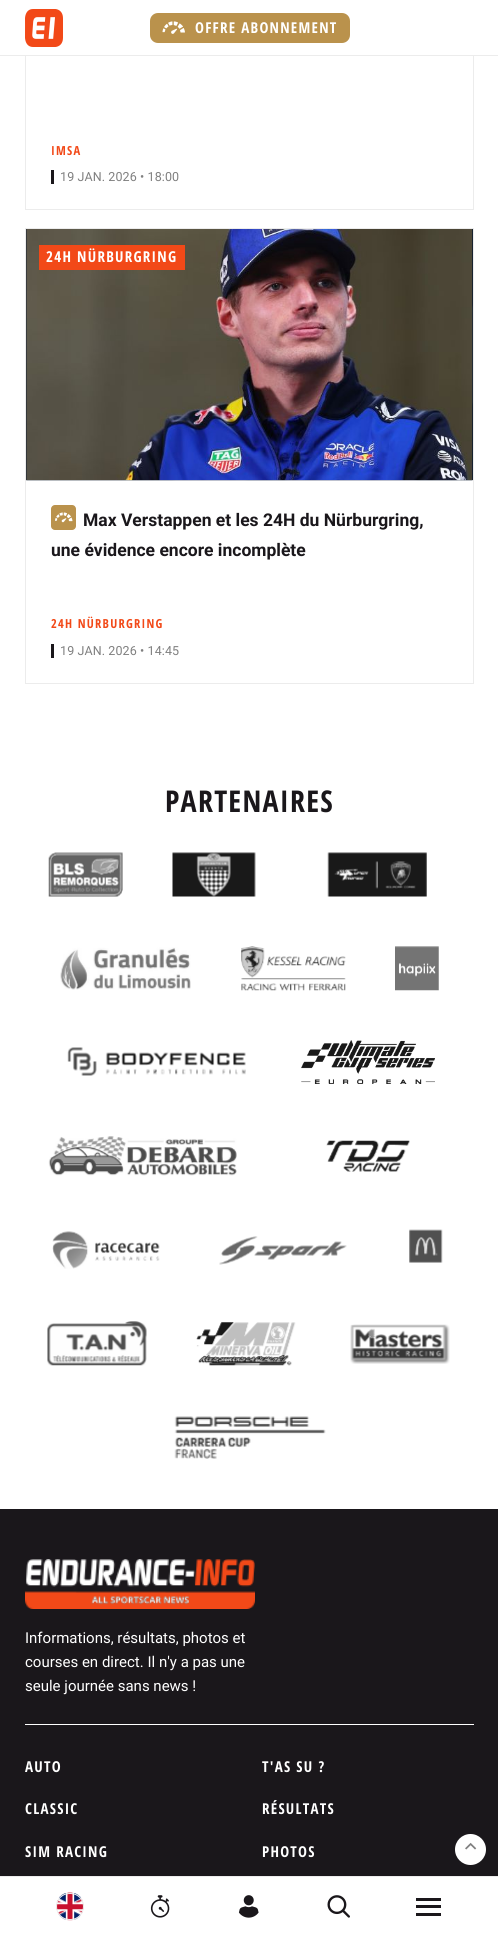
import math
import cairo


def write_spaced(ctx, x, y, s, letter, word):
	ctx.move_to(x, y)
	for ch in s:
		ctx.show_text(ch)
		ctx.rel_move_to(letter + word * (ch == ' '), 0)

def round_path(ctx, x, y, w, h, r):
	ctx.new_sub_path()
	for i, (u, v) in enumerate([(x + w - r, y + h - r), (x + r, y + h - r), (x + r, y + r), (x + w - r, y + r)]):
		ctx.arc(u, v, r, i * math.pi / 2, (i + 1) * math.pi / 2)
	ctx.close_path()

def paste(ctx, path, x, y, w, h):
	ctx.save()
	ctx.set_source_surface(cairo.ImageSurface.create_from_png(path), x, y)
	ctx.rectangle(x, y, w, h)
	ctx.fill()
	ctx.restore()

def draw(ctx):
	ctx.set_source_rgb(1, 1, 1)
	ctx.paint()
	ctx.rectangle(25.5, -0.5, 448, 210)
	ctx.set_source_rgb(0.922, 0.922, 0.922)
	ctx.set_line_width(1)
	ctx.stroke()
	ctx.set_source_rgb(1, 1, 1)
	ctx.rectangle(25, 0, 449, 55)
	ctx.fill()
	ctx.set_source_rgb(0.922, 0.922, 0.922)
	ctx.rectangle(0, 55, 498, 1)
	ctx.fill()
	paste(ctx, 'media/1.png', 25, 9, 38, 38)
	ctx.set_source_rgb(0.729, 0.573, 0.298)
	round_path(ctx, 150, 13, 200, 30, 8)
	ctx.fill()
	paste(ctx, 'media/2.png', 162, 21, 23, 13)
	ctx.select_font_face('Open Sans Condensed', cairo.FONT_SLANT_NORMAL, cairo.FONT_WEIGHT_BOLD)
	ctx.set_font_size(15)
	ctx.set_source_rgb(1, 1, 1)
	write_spaced(ctx, 195, 33, 'OFFRE ABONNEMENT', 1.25, 0)
	ctx.set_font_size(12.5)
	ctx.set_source_rgb(0.949, 0.286, 0.094)
	write_spaced(ctx, 51, 155, 'IMSA', 1.25, 0)
	ctx.set_source_rgb(0.102, 0.09, 0.106)
	ctx.rectangle(51, 170, 3, 14)
	ctx.fill()
	ctx.select_font_face('Roboto')
	ctx.set_source_rgb(0.498, 0.498, 0.498)
	write_spaced(ctx, 60, 181, '19 JAN. 2026 • 18:00', 0.1, 0)
	ctx.rectangle(25.5, 228.5, 448, 455)
	ctx.set_source_rgb(0.922, 0.922, 0.922)
	ctx.stroke()
	ctx.set_source_rgb(0.027, 0.086, 0.173)
	ctx.rectangle(26, 229, 447, 251)
	ctx.fill()
	paste(ctx, 'media/3.png', 26, 229, 447, 252)
	paste(ctx, 'media/4.png', 26, 229, 447, 252)
	ctx.set_source_rgb(0.949, 0.286, 0.094)
	ctx.rectangle(39, 245, 146, 25)
	ctx.fill()
	ctx.select_font_face('Open Sans Condensed', cairo.FONT_SLANT_NORMAL, cairo.FONT_WEIGHT_BOLD)
	ctx.set_font_size(15)
	ctx.set_source_rgb(1, 1, 1)
	write_spaced(ctx, 46, 262, '24H NÜRBURGRING', 1.25, 0)
	ctx.set_source_rgb(0.729, 0.573, 0.298)
	round_path(ctx, 51, 505, 25, 25, 4)
	ctx.fill()
	paste(ctx, 'media/5.png', 55, 512, 18, 11)
	ctx.select_font_face('Roboto', cairo.FONT_SLANT_NORMAL, cairo.FONT_WEIGHT_BOLD)
	ctx.set_font_size(17.5)
	ctx.set_source_rgb(0.102, 0.09, 0.106)
	ctx.move_to(83, 526)
	ctx.show_text('Max Verstappen et les 24H du Nürburgring,')
	ctx.move_to(51, 556)
	ctx.show_text('une évidence encore incomplète')
	ctx.select_font_face('Open Sans Condensed', cairo.FONT_SLANT_NORMAL, cairo.FONT_WEIGHT_BOLD)
	ctx.set_font_size(12.5)
	ctx.set_source_rgb(0.949, 0.286, 0.094)
	write_spaced(ctx, 51, 628, '24H NÜRBURGRING', 1.25, 0)
	ctx.set_source_rgb(0.102, 0.09, 0.106)
	ctx.rectangle(51, 644, 3, 14)
	ctx.fill()
	ctx.select_font_face('Roboto')
	ctx.set_source_rgb(0.498, 0.498, 0.498)
	write_spaced(ctx, 60, 655, '19 JAN. 2026 • 14:45', 0.1, 0)
	ctx.select_font_face('Open Sans Condensed', cairo.FONT_SLANT_NORMAL, cairo.FONT_WEIGHT_BOLD)
	ctx.set_font_size(30)
	ctx.set_source_rgb(0.102, 0.09, 0.106)
	write_spaced(ctx, 165, 812, 'PARTENAIRES', 1.25, 0)
	paste(ctx, 'media/6.png', 48, 852, 75, 45)
	paste(ctx, 'media/7.png', 172, 852, 84, 45)
	paste(ctx, 'media/8.png', 327, 852, 100, 45)
	paste(ctx, 'media/9.png', 60, 947, 131, 43)
	paste(ctx, 'media/10.png', 241, 946, 105, 45)
	paste(ctx, 'media/11.png', 395, 946, 44, 45)
	paste(ctx, 'media/12.png', 67, 1047, 179, 29)
	paste(ctx, 'media/13.png', 301, 1040, 134, 44)
	paste(ctx, 'media/14.png', 48, 1136, 189, 40)
	paste(ctx, 'media/15.png', 326, 1140, 84, 32)
	paste(ctx, 'media/16.png', 52, 1231, 108, 38)
	paste(ctx, 'media/17.png', 219, 1236, 128, 29)
	paste(ctx, 'media/18.png', 409, 1229, 34, 34)
	paste(ctx, 'media/19.png', 47, 1321, 100, 45)
	paste(ctx, 'media/20.png', 196, 1322, 100, 44)
	paste(ctx, 'media/21.png', 350, 1324, 100, 40)
	paste(ctx, 'media/22.png', 174, 1416, 152, 43)
	ctx.rectangle(0, 1509, 498, 367)
	ctx.fill()
	paste(ctx, 'media/23.png', 25, 1559, 230, 50)
	ctx.select_font_face('Roboto')
	ctx.set_font_size(15)
	ctx.set_source_rgb(1, 1, 1)
	for x, y, s in [
		(25, 1643, 'Informations, résultats, photos et'),
		(25, 1667, 'courses en direct. Il n\'y a pas une'),
		(25, 1691, 'seule journée sans news !'),
	]:
		ctx.move_to(x, y)
		ctx.show_text(s)
	ctx.rectangle(25, 1724, 449, 1)
	ctx.fill()
	ctx.select_font_face('Open Sans Condensed', cairo.FONT_SLANT_NORMAL, cairo.FONT_WEIGHT_BOLD)
	for x, y, s in [
		(25, 1772, 'AUTO'),
		(262, 1772, 'T\'AS SU ?'),
		(25, 1814, 'CLASSIC'),
		(262, 1814, 'RÉSULTATS'),
		(25, 1857, 'SIM RACING'),
		(262, 1857, 'PHOTOS'),
	]:
		write_spaced(ctx, x, y, s, 1.25, 0)
	ctx.new_path()
	ctx.arc(470.5, 1849.5, 15.5, 0, 2 * math.pi)
	ctx.fill()
	paste(ctx, 'media/24.png', 465, 1842, 12, 8)
	ctx.set_source_rgb(0.922, 0.922, 0.922)
	ctx.rectangle(0, 1876, 498, 1)
	ctx.fill()
	paste(ctx, 'media/25.png', 56, 1892, 28, 29)
	round_path(ctx, 56.5, 1893.5, 27, 26, 13)
	ctx.stroke()
	paste(ctx, 'media/26.png', 150, 1895, 20, 23)
	paste(ctx, 'media/27.png', 238, 1895, 21, 23)
	paste(ctx, 'media/28.png', 327, 1895, 23, 23)
	ctx.set_source_rgb(0.102, 0.09, 0.106)
	ctx.rectangle(416, 1898, 25, 3)
	ctx.rectangle(416, 1905, 25, 3)
	ctx.rectangle(416, 1913, 25, 3)
	ctx.fill()


surface = cairo.ImageSurface(cairo.FORMAT_RGB24, 498, 1940)
ctx = cairo.Context(surface)
options = cairo.FontOptions()
options.set_hint_metrics(cairo.HINT_METRICS_OFF)
options.set_hint_style(cairo.HINT_STYLE_NONE)
ctx.set_font_options(options)
ctx.set_miter_limit(4)
draw(ctx)
surface.write_to_png('image.png')
